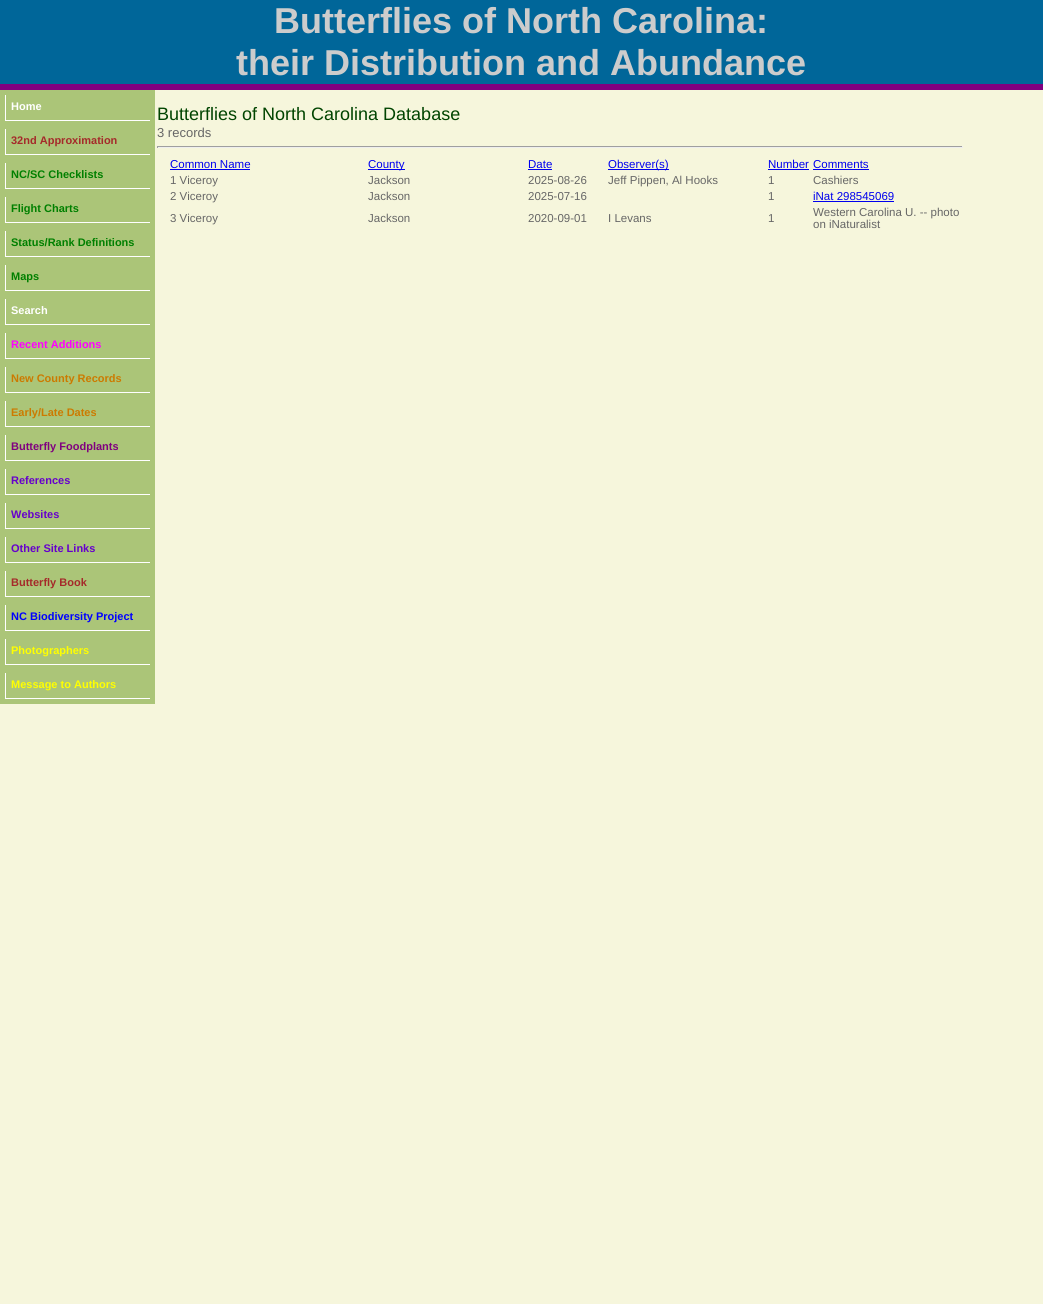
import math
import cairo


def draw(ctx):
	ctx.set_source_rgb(0.961, 0.961, 0.863)
	ctx.paint()
	ctx.set_source_rgb(0, 0.4, 0.6)
	ctx.rectangle(0, 0, 1043, 84)
	ctx.fill()
	ctx.select_font_face('Liberation Sans', cairo.FONT_SLANT_NORMAL, cairo.FONT_WEIGHT_BOLD)
	ctx.set_font_size(36)
	ctx.set_source_rgb(0.8, 0.8, 0.8)
	ctx.move_to(274, 33)
	ctx.show_text('Butterflies of North Carolina:')
	ctx.move_to(236, 75)
	ctx.show_text('their Distribution and Abundance')
	ctx.set_source_rgb(0.502, 0, 0.502)
	ctx.rectangle(0, 84, 1043, 6)
	ctx.fill()
	ctx.set_source_rgb(0.671, 0.773, 0.471)
	ctx.rectangle(0, 90, 155, 614)
	ctx.fill()
	ctx.set_source_rgb(1, 1, 1)
	ctx.rectangle(5, 120, 145, 1)
	ctx.rectangle(5, 95, 1, 26)
	ctx.fill()
	ctx.set_font_size(11)
	ctx.move_to(11, 110)
	ctx.show_text('Home')
	ctx.rectangle(5, 154, 145, 1)
	ctx.fill()
	ctx.rectangle(5, 129, 1, 26)
	ctx.fill()
	ctx.set_source_rgb(0.647, 0.165, 0.165)
	ctx.move_to(11, 144)
	ctx.show_text('32nd Approximation')
	ctx.set_source_rgb(1, 1, 1)
	ctx.rectangle(5, 188, 145, 1)
	ctx.fill()
	ctx.rectangle(5, 163, 1, 26)
	ctx.fill()
	ctx.set_source_rgb(0, 0.502, 0)
	ctx.move_to(11, 178)
	ctx.show_text('NC/SC Checklists')
	ctx.set_source_rgb(1, 1, 1)
	ctx.rectangle(5, 222, 145, 1)
	ctx.fill()
	ctx.rectangle(5, 197, 1, 26)
	ctx.fill()
	ctx.set_source_rgb(0, 0.502, 0)
	ctx.move_to(11, 212)
	ctx.show_text('Flight Charts')
	ctx.set_source_rgb(1, 1, 1)
	ctx.rectangle(5, 256, 145, 1)
	ctx.fill()
	ctx.rectangle(5, 231, 1, 26)
	ctx.fill()
	ctx.set_source_rgb(0, 0.502, 0)
	ctx.move_to(11, 246)
	ctx.show_text('Status/Rank Definitions')
	ctx.set_source_rgb(1, 1, 1)
	ctx.rectangle(5, 290, 145, 1)
	ctx.fill()
	ctx.rectangle(5, 265, 1, 26)
	ctx.fill()
	ctx.set_source_rgb(0, 0.502, 0)
	ctx.move_to(11, 280)
	ctx.show_text('Maps')
	ctx.set_source_rgb(1, 1, 1)
	ctx.rectangle(5, 324, 145, 1)
	ctx.fill()
	ctx.rectangle(5, 299, 1, 26)
	ctx.fill()
	ctx.move_to(11, 314)
	ctx.show_text('Search')
	ctx.rectangle(5, 358, 145, 1)
	ctx.fill()
	ctx.rectangle(5, 333, 1, 26)
	ctx.fill()
	ctx.set_source_rgb(1, 0, 1)
	ctx.move_to(11, 348)
	ctx.show_text('Recent Additions')
	ctx.set_source_rgb(1, 1, 1)
	ctx.rectangle(5, 392, 145, 1)
	ctx.fill()
	ctx.rectangle(5, 367, 1, 26)
	ctx.fill()
	ctx.set_source_rgb(0.8, 0.478, 0)
	ctx.move_to(11, 382)
	ctx.show_text('New County Records')
	ctx.set_source_rgb(1, 1, 1)
	ctx.rectangle(5, 426, 145, 1)
	ctx.fill()
	ctx.rectangle(5, 401, 1, 26)
	ctx.fill()
	ctx.set_source_rgb(0.8, 0.478, 0)
	ctx.move_to(11, 416)
	ctx.show_text('Early/Late Dates')
	ctx.set_source_rgb(1, 1, 1)
	ctx.rectangle(5, 460, 145, 1)
	ctx.fill()
	ctx.rectangle(5, 435, 1, 26)
	ctx.fill()
	ctx.set_source_rgb(0.502, 0, 0.502)
	ctx.move_to(11, 450)
	ctx.show_text('Butterfly Foodplants')
	ctx.set_source_rgb(1, 1, 1)
	ctx.rectangle(5, 494, 145, 1)
	ctx.fill()
	ctx.rectangle(5, 469, 1, 26)
	ctx.fill()
	ctx.set_source_rgb(0.4, 0, 0.8)
	ctx.move_to(11, 484)
	ctx.show_text('References')
	ctx.set_source_rgb(1, 1, 1)
	ctx.rectangle(5, 528, 145, 1)
	ctx.fill()
	ctx.rectangle(5, 503, 1, 26)
	ctx.fill()
	ctx.set_source_rgb(0.4, 0, 0.8)
	ctx.move_to(11, 518)
	ctx.show_text('Websites')
	ctx.set_source_rgb(1, 1, 1)
	ctx.rectangle(5, 562, 145, 1)
	ctx.fill()
	ctx.rectangle(5, 537, 1, 26)
	ctx.fill()
	ctx.set_source_rgb(0.4, 0, 0.8)
	ctx.move_to(11, 552)
	ctx.show_text('Other Site Links')
	ctx.set_source_rgb(1, 1, 1)
	ctx.rectangle(5, 596, 145, 1)
	ctx.fill()
	ctx.rectangle(5, 571, 1, 26)
	ctx.fill()
	ctx.set_source_rgb(0.647, 0.165, 0.165)
	ctx.move_to(11, 586)
	ctx.show_text('Butterfly Book')
	ctx.set_source_rgb(1, 1, 1)
	ctx.rectangle(5, 630, 145, 1)
	ctx.fill()
	ctx.rectangle(5, 605, 1, 26)
	ctx.fill()
	ctx.set_source_rgb(0, 0, 1)
	ctx.move_to(11, 620)
	ctx.show_text('NC Biodiversity Project')
	ctx.set_source_rgb(1, 1, 1)
	ctx.rectangle(5, 664, 145, 1)
	ctx.fill()
	ctx.rectangle(5, 639, 1, 26)
	ctx.fill()
	ctx.set_source_rgb(1, 1, 0)
	ctx.move_to(11, 654)
	ctx.show_text('Photographers')
	ctx.set_source_rgb(1, 1, 1)
	ctx.rectangle(5, 698, 145, 1)
	ctx.fill()
	ctx.rectangle(5, 673, 1, 26)
	ctx.fill()
	ctx.set_source_rgb(1, 1, 0)
	ctx.move_to(11, 688)
	ctx.show_text('Message to Authors')
	ctx.select_font_face('Liberation Sans')
	ctx.set_font_size(18)
	ctx.set_source_rgb(0, 0.267, 0)
	ctx.move_to(157, 120)
	ctx.show_text('Butterflies of North Carolina Database')
	ctx.set_font_size(13)
	ctx.set_source_rgb(0.4, 0.4, 0.4)
	ctx.move_to(157, 137)
	ctx.show_text('3 records')
	ctx.set_source_rgb(0.624, 0.624, 0.624)
	ctx.rectangle(157, 146, 806, 1)
	ctx.fill()
	ctx.set_source_rgb(0.933, 0.933, 0.933)
	ctx.rectangle(962, 146, 1, 2)
	ctx.rectangle(157, 147, 806, 1)
	ctx.fill()
	ctx.set_source_rgb(0.624, 0.624, 0.624)
	ctx.rectangle(157, 146, 1, 2)
	ctx.fill()
	ctx.set_font_size(11.5)
	ctx.set_source_rgb(0, 0, 0.933)
	ctx.move_to(170, 168)
	ctx.show_text('Common Name')
	ctx.rectangle(170, 169, 80, 1)
	ctx.fill()
	ctx.rectangle(368, 169, 37, 1)
	ctx.fill()
	ctx.move_to(368, 168)
	ctx.show_text('County')
	ctx.move_to(528, 168)
	ctx.show_text('Date')
	ctx.rectangle(528, 169, 24, 1)
	ctx.fill()
	ctx.rectangle(608, 169, 61, 1)
	ctx.fill()
	ctx.move_to(608, 168)
	ctx.show_text('Observer(s)')
	ctx.move_to(768, 168)
	ctx.show_text('Number')
	ctx.rectangle(768, 169, 41, 1)
	ctx.fill()
	ctx.move_to(813, 168)
	ctx.show_text('Comments')
	ctx.rectangle(813, 169, 56, 1)
	ctx.fill()
	ctx.set_source_rgb(0.4, 0.4, 0.4)
	for x, y, s in [
		(170, 184, '1 Viceroy'),
		(368, 184, 'Jackson'),
		(528, 184, '2025-08-26'),
		(608, 184, 'Jeff Pippen, Al Hooks'),
		(768, 184, '1'),
		(813, 184, 'Cashiers'),
		(170, 200, '2 Viceroy'),
		(368, 200, 'Jackson'),
		(528, 200, '2025-07-16'),
		(768, 200, '1'),
	]:
		ctx.move_to(x, y)
		ctx.show_text(s)
	ctx.set_source_rgb(0, 0, 0.933)
	ctx.move_to(813, 200)
	ctx.show_text('iNat 298545069')
	ctx.rectangle(813, 201, 81, 1)
	ctx.fill()
	ctx.set_source_rgb(0.4, 0.4, 0.4)
	for x, y, s in [
		(170, 222, '3 Viceroy'),
		(368, 222, 'Jackson'),
		(528, 222, '2020-09-01'),
		(608, 222, 'I Levans'),
		(768, 222, '1'),
		(813, 216, 'Western Carolina U. -- photo'),
		(813, 228, 'on iNaturalist'),
	]:
		ctx.move_to(x, y)
		ctx.show_text(s)


surface = cairo.ImageSurface(cairo.FORMAT_RGB24, 1043, 1304)
ctx = cairo.Context(surface)
options = cairo.FontOptions()
options.set_hint_metrics(cairo.HINT_METRICS_OFF)
options.set_hint_style(cairo.HINT_STYLE_NONE)
ctx.set_font_options(options)
ctx.set_miter_limit(4)
draw(ctx)
surface.write_to_png('image.png')
